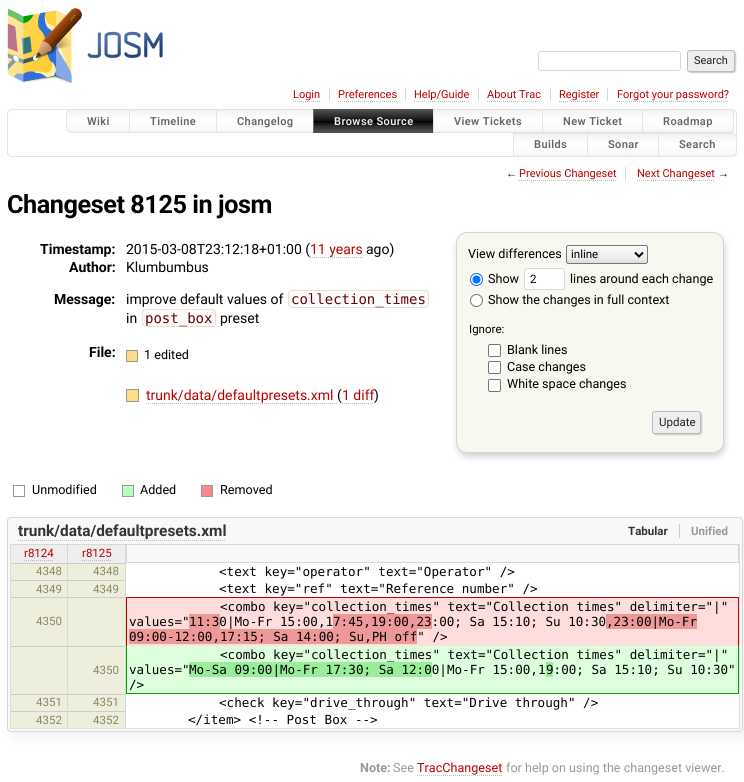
import math
import cairo


def write_spaced(ctx, x, y, s, letter, word):
	ctx.move_to(x, y)
	for ch in s:
		ctx.show_text(ch)
		ctx.rel_move_to(letter + word * (ch == ' '), 0)

def round_path(ctx, x, y, w, h, r):
	ctx.new_sub_path()
	for i, (u, v) in enumerate([(x + w - r, y + h - r), (x + r, y + h - r), (x + r, y + r), (x + w - r, y + r)]):
		ctx.arc(u, v, r, i * math.pi / 2, (i + 1) * math.pi / 2)
	ctx.close_path()

def blur_box(ctx, x, y, w, h, r, blur, alpha):
	ctx.push_group_with_content(cairo.CONTENT_ALPHA)
	ctx.set_operator(cairo.OPERATOR_SOURCE)
	for i in range(15, -16, -2):
		e = blur * i / 6
		if min(w, h) + 2 * e > 0:
			ctx.set_source_rgba(0, 0, 0, alpha * math.erfc((i - 1) / 8.5) / 2)
			round_path(ctx, x - e, y - e, w + 2 * e, h + 2 * e, max(0, min(r + e + blur * .6, min(w, h) / 2 + e)))
			ctx.fill()
	ctx.mask(ctx.pop_group())

def paste(ctx, path, x, y, w, h):
	ctx.save()
	ctx.set_source_surface(cairo.ImageSurface.create_from_png(path), x, y)
	ctx.rectangle(x, y, w, h)
	ctx.fill()
	ctx.restore()

def draw(ctx):
	ctx.set_source_rgb(1, 1, 1)
	ctx.paint()
	paste(ctx, 'media/1.png', 7, 8, 156, 75)
	round_path(ctx, 538.5, 51.5, 142, 19, 2.5)
	ctx.set_source_rgb(0.843, 0.843, 0.843)
	ctx.set_line_width(1)
	ctx.stroke()
	ctx.set_source_rgb(0.8, 0.8, 0.8)
	blur_box(ctx, 688, 51, 48, 22, 3, 0.5, 1)
	ctx.set_source_rgb(0.933, 0.933, 0.933)
	round_path(ctx, 687.5, 50.5, 47, 21, 2.5)
	ctx.fill_preserve()
	ctx.set_source_rgb(0.733, 0.733, 0.733)
	ctx.stroke()
	ctx.select_font_face('Roboto')
	ctx.set_font_size(11)
	ctx.set_source_rgb(0.133, 0.133, 0.133)
	ctx.move_to(694, 64)
	ctx.show_text('Search')
	ctx.set_source_rgb(0.843, 0.843, 0.843)
	ctx.rectangle(329, 88, 1, 13)
	ctx.fill()
	ctx.set_source_rgb(0.733, 0, 0)
	ctx.move_to(293, 98)
	ctx.show_text('Login')
	ctx.new_path()
	ctx.move_to(293, 101.5)
	ctx.line_to(320, 101.5)
	ctx.set_source_rgb(0.733, 0.733, 0.733)
	ctx.set_dash([1, 1])
	ctx.stroke()
	ctx.set_source_rgb(0.843, 0.843, 0.843)
	ctx.rectangle(405, 88, 1, 13)
	ctx.fill()
	ctx.set_source_rgb(0.733, 0, 0)
	ctx.move_to(338, 98)
	ctx.show_text('Preferences')
	ctx.new_path()
	ctx.move_to(338, 101.5)
	ctx.line_to(397, 101.5)
	ctx.set_source_rgb(0.733, 0.733, 0.733)
	ctx.stroke()
	ctx.set_source_rgb(0.843, 0.843, 0.843)
	ctx.rectangle(478, 88, 1, 13)
	ctx.fill()
	ctx.set_source_rgb(0.733, 0, 0)
	ctx.move_to(414, 98)
	ctx.show_text('Help/Guide')
	ctx.new_path()
	ctx.move_to(414, 101.5)
	ctx.line_to(470, 101.5)
	ctx.set_source_rgb(0.733, 0.733, 0.733)
	ctx.stroke()
	ctx.set_source_rgb(0.843, 0.843, 0.843)
	ctx.rectangle(550, 88, 1, 13)
	ctx.fill()
	ctx.set_source_rgb(0.733, 0, 0)
	ctx.move_to(487, 98)
	ctx.show_text('About Trac')
	ctx.new_path()
	ctx.move_to(487, 101.5)
	ctx.line_to(541, 101.5)
	ctx.set_source_rgb(0.733, 0.733, 0.733)
	ctx.stroke()
	ctx.set_source_rgb(0.843, 0.843, 0.843)
	ctx.rectangle(607, 88, 1, 13)
	ctx.fill()
	ctx.set_source_rgb(0.733, 0, 0)
	ctx.move_to(559, 98)
	ctx.show_text('Register')
	ctx.new_path()
	ctx.move_to(559, 101.5)
	ctx.line_to(599, 101.5)
	ctx.set_source_rgb(0.733, 0.733, 0.733)
	ctx.stroke()
	ctx.set_source_rgb(0.733, 0, 0)
	ctx.move_to(617, 98)
	ctx.show_text('Forgot your password?')
	ctx.new_path()
	ctx.move_to(617, 101.5)
	ctx.line_to(729, 101.5)
	ctx.set_source_rgb(0.733, 0.733, 0.733)
	ctx.stroke()
	round_path(ctx, 7.5, 109.5, 729, 47, 4.5)
	ctx.set_source_rgb(0.894, 0.894, 0.894)
	ctx.set_dash([])
	ctx.stroke()
	ctx.save()
	ctx.new_path()
	ctx.move_to(72, 109)
	ctx.line_to(130, 109)
	ctx.line_to(130, 133)
	ctx.line_to(72, 133)
	ctx.curve_to(68.5, 133, 66, 130.5, 66, 127)
	ctx.line_to(66, 115)
	ctx.curve_to(66, 111.5, 68.5, 109, 72, 109)
	ctx.close_path()
	ctx.clip()
	gradient = cairo.LinearGradient(98, 110, 98, 132)
	gradient.add_color_stop_rgba(0, 0.949, 0.949, 0.949, 1)
	gradient.add_color_stop_rgba(0.25, 0.98, 0.98, 0.98, 1)
	gradient.add_color_stop_rgba(0.49, 0.996, 0.996, 0.996, 1)
	gradient.add_color_stop_rgba(0.51, 1, 1, 1, 1)
	gradient.add_color_stop_rgba(0.85, 0.98, 0.98, 0.98, 1)
	gradient.add_color_stop_rgba(1, 0.949, 0.949, 0.949, 1)
	ctx.set_source(gradient)
	ctx.rectangle(66, 110, 63, 22)
	ctx.fill()
	ctx.restore()
	ctx.new_path()
	ctx.move_to(72, 109.5)
	ctx.line_to(129.5, 109.5)
	ctx.line_to(129.5, 132.5)
	ctx.line_to(72, 132.5)
	ctx.curve_to(69, 132.5, 66.5, 130, 66.5, 127)
	ctx.line_to(66.5, 115)
	ctx.curve_to(66.5, 112, 69, 109.5, 72, 109.5)
	ctx.close_path()
	ctx.stroke()
	ctx.select_font_face('Roboto SemiBold')
	ctx.set_source_rgb(0.4, 0.4, 0.4)
	write_spaced(ctx, 87, 125, 'Wiki', 0.4, 0)
	gradient = cairo.LinearGradient(173, 110, 173, 132)
	gradient.add_color_stop_rgba(0, 0.949, 0.949, 0.949, 1)
	gradient.add_color_stop_rgba(0.25, 0.98, 0.98, 0.98, 1)
	gradient.add_color_stop_rgba(0.49, 0.996, 0.996, 0.996, 1)
	gradient.add_color_stop_rgba(0.51, 1, 1, 1, 1)
	gradient.add_color_stop_rgba(0.85, 0.98, 0.98, 0.98, 1)
	gradient.add_color_stop_rgba(1, 0.949, 0.949, 0.949, 1)
	ctx.set_source(gradient)
	ctx.rectangle(130, 110, 86, 22)
	ctx.fill()
	ctx.rectangle(129.5, 109.5, 87, 23)
	ctx.set_source_rgb(0.894, 0.894, 0.894)
	ctx.stroke()
	ctx.set_source_rgb(0.4, 0.4, 0.4)
	write_spaced(ctx, 150, 125, 'Timeline', 0.4, 0)
	gradient = cairo.LinearGradient(265, 110, 265, 132)
	gradient.add_color_stop_rgba(0, 0.949, 0.949, 0.949, 1)
	gradient.add_color_stop_rgba(0.25, 0.98, 0.98, 0.98, 1)
	gradient.add_color_stop_rgba(0.49, 0.996, 0.996, 0.996, 1)
	gradient.add_color_stop_rgba(0.51, 1, 1, 1, 1)
	gradient.add_color_stop_rgba(0.85, 0.98, 0.98, 0.98, 1)
	gradient.add_color_stop_rgba(1, 0.949, 0.949, 0.949, 1)
	ctx.set_source(gradient)
	ctx.rectangle(217, 110, 96, 22)
	ctx.fill()
	ctx.rectangle(216.5, 109.5, 97, 23)
	ctx.set_source_rgb(0.894, 0.894, 0.894)
	ctx.stroke()
	ctx.set_source_rgb(0.4, 0.4, 0.4)
	write_spaced(ctx, 237, 125, 'Changelog', 0.4, 0)
	ctx.rectangle(313.5, 109.5, 120, 23)
	ctx.stroke()
	gradient = cairo.LinearGradient(374, 109, 374, 133)
	gradient.add_color_stop_rgba(0, 0.333, 0.333, 0.333, 1)
	gradient.add_color_stop_rgba(0.25, 0.2, 0.2, 0.2, 1)
	gradient.add_color_stop_rgba(0.49, 0.067, 0.067, 0.067, 1)
	gradient.add_color_stop_rgba(0.51, 0, 0, 0, 1)
	gradient.add_color_stop_rgba(0.75, 0.2, 0.2, 0.2, 1)
	gradient.add_color_stop_rgba(1, 0.333, 0.333, 0.333, 1)
	ctx.set_source(gradient)
	ctx.rectangle(314, 109, 119, 24)
	ctx.fill()
	ctx.set_source_rgb(0.933, 0.933, 0.933)
	write_spaced(ctx, 334, 125, 'Browse Source', 0.4, 0)
	gradient = cairo.LinearGradient(488, 110, 488, 132)
	gradient.add_color_stop_rgba(0, 0.949, 0.949, 0.949, 1)
	gradient.add_color_stop_rgba(0.25, 0.98, 0.98, 0.98, 1)
	gradient.add_color_stop_rgba(0.49, 0.996, 0.996, 0.996, 1)
	gradient.add_color_stop_rgba(0.51, 1, 1, 1, 1)
	gradient.add_color_stop_rgba(0.85, 0.98, 0.98, 0.98, 1)
	gradient.add_color_stop_rgba(1, 0.949, 0.949, 0.949, 1)
	ctx.set_source(gradient)
	ctx.rectangle(434, 110, 108, 22)
	ctx.fill()
	ctx.rectangle(433.5, 109.5, 109, 23)
	ctx.set_source_rgb(0.894, 0.894, 0.894)
	ctx.stroke()
	ctx.set_source_rgb(0.4, 0.4, 0.4)
	write_spaced(ctx, 454, 125, 'View Tickets', 0.4, 0)
	gradient = cairo.LinearGradient(593, 110, 593, 132)
	gradient.add_color_stop_rgba(0, 0.949, 0.949, 0.949, 1)
	gradient.add_color_stop_rgba(0.25, 0.98, 0.98, 0.98, 1)
	gradient.add_color_stop_rgba(0.49, 0.996, 0.996, 0.996, 1)
	gradient.add_color_stop_rgba(0.51, 1, 1, 1, 1)
	gradient.add_color_stop_rgba(0.85, 0.98, 0.98, 0.98, 1)
	gradient.add_color_stop_rgba(1, 0.949, 0.949, 0.949, 1)
	ctx.set_source(gradient)
	ctx.rectangle(543, 110, 99, 22)
	ctx.fill()
	ctx.rectangle(542.5, 109.5, 100, 23)
	ctx.set_source_rgb(0.894, 0.894, 0.894)
	ctx.stroke()
	ctx.set_source_rgb(0.4, 0.4, 0.4)
	write_spaced(ctx, 563, 125, 'New Ticket', 0.4, 0)
	gradient = cairo.LinearGradient(688, 110, 688, 132)
	gradient.add_color_stop_rgba(0, 0.949, 0.949, 0.949, 1)
	gradient.add_color_stop_rgba(0.25, 0.98, 0.98, 0.98, 1)
	gradient.add_color_stop_rgba(0.49, 0.996, 0.996, 0.996, 1)
	gradient.add_color_stop_rgba(0.51, 1, 1, 1, 1)
	gradient.add_color_stop_rgba(0.85, 0.98, 0.98, 0.98, 1)
	gradient.add_color_stop_rgba(1, 0.949, 0.949, 0.949, 1)
	ctx.set_source(gradient)
	ctx.rectangle(643, 110, 90, 22)
	ctx.fill()
	ctx.rectangle(642.5, 109.5, 91, 23)
	ctx.set_source_rgb(0.894, 0.894, 0.894)
	ctx.stroke()
	ctx.set_source_rgb(0.4, 0.4, 0.4)
	write_spaced(ctx, 663, 125, 'Roadmap', 0.4, 0)
	gradient = cairo.LinearGradient(551, 134, 551, 156)
	gradient.add_color_stop_rgba(0, 0.949, 0.949, 0.949, 1)
	gradient.add_color_stop_rgba(0.25, 0.98, 0.98, 0.98, 1)
	gradient.add_color_stop_rgba(0.49, 0.996, 0.996, 0.996, 1)
	gradient.add_color_stop_rgba(0.51, 1, 1, 1, 1)
	gradient.add_color_stop_rgba(0.85, 0.98, 0.98, 0.98, 1)
	gradient.add_color_stop_rgba(1, 0.949, 0.949, 0.949, 1)
	ctx.set_source(gradient)
	ctx.rectangle(514, 134, 73, 22)
	ctx.fill()
	ctx.rectangle(513.5, 133.5, 74, 23)
	ctx.set_source_rgb(0.894, 0.894, 0.894)
	ctx.stroke()
	ctx.set_source_rgb(0.4, 0.4, 0.4)
	write_spaced(ctx, 534, 148, 'Builds', 0.4, 0)
	gradient = cairo.LinearGradient(623, 134, 623, 156)
	gradient.add_color_stop_rgba(0, 0.949, 0.949, 0.949, 1)
	gradient.add_color_stop_rgba(0.25, 0.98, 0.98, 0.98, 1)
	gradient.add_color_stop_rgba(0.49, 0.996, 0.996, 0.996, 1)
	gradient.add_color_stop_rgba(0.51, 1, 1, 1, 1)
	gradient.add_color_stop_rgba(0.85, 0.98, 0.98, 0.98, 1)
	gradient.add_color_stop_rgba(1, 0.949, 0.949, 0.949, 1)
	ctx.set_source(gradient)
	ctx.rectangle(588, 134, 70, 22)
	ctx.fill()
	ctx.rectangle(587.5, 133.5, 71, 23)
	ctx.set_source_rgb(0.894, 0.894, 0.894)
	ctx.stroke()
	ctx.set_source_rgb(0.4, 0.4, 0.4)
	write_spaced(ctx, 608, 148, 'Sonar', 0.4, 0)
	ctx.save()
	ctx.new_path()
	ctx.move_to(658, 133)
	ctx.line_to(731, 133)
	ctx.curve_to(734.5, 133, 737, 135.5, 737, 139)
	ctx.line_to(737, 151)
	ctx.curve_to(737, 154.5, 734.5, 157, 731, 157)
	ctx.line_to(658, 157)
	ctx.close_path()
	ctx.clip()
	gradient = cairo.LinearGradient(698, 134, 698, 156)
	gradient.add_color_stop_rgba(0, 0.949, 0.949, 0.949, 1)
	gradient.add_color_stop_rgba(0.25, 0.98, 0.98, 0.98, 1)
	gradient.add_color_stop_rgba(0.49, 0.996, 0.996, 0.996, 1)
	gradient.add_color_stop_rgba(0.51, 1, 1, 1, 1)
	gradient.add_color_stop_rgba(0.85, 0.98, 0.98, 0.98, 1)
	gradient.add_color_stop_rgba(1, 0.949, 0.949, 0.949, 1)
	ctx.set_source(gradient)
	ctx.rectangle(659, 134, 78, 22)
	ctx.fill()
	ctx.restore()
	ctx.new_path()
	ctx.move_to(658.5, 133.5)
	ctx.line_to(731, 133.5)
	ctx.curve_to(734, 133.5, 736.5, 136, 736.5, 139)
	ctx.line_to(736.5, 151)
	ctx.curve_to(736.5, 154, 734, 156.5, 731, 156.5)
	ctx.line_to(658.5, 156.5)
	ctx.close_path()
	ctx.set_source_rgb(0.894, 0.894, 0.894)
	ctx.stroke()
	ctx.set_source_rgb(0.4, 0.4, 0.4)
	write_spaced(ctx, 679, 148, 'Search', 0.4, 0)
	ctx.set_source_rgb(0.843, 0.843, 0.843)
	ctx.rectangle(625, 167, 1, 13)
	ctx.fill()
	ctx.select_font_face('Liberation Sans')
	ctx.set_source_rgb(0, 0, 0)
	ctx.move_to(506, 177)
	ctx.show_text('←')
	ctx.select_font_face('Roboto')
	ctx.set_source_rgb(0.733, 0, 0)
	ctx.move_to(519, 177)
	ctx.show_text('Previous Changeset')
	ctx.new_path()
	ctx.move_to(519, 180.5)
	ctx.line_to(617, 180.5)
	ctx.set_source_rgb(0.733, 0.733, 0.733)
	ctx.set_dash([1, 1])
	ctx.stroke()
	ctx.set_source_rgb(0.733, 0, 0)
	ctx.move_to(637, 177)
	ctx.show_text('Next Changeset')
	ctx.new_path()
	ctx.move_to(637, 180.5)
	ctx.line_to(715, 180.5)
	ctx.set_source_rgb(0.733, 0.733, 0.733)
	ctx.stroke()
	ctx.select_font_face('Liberation Sans')
	ctx.set_source_rgb(0, 0, 0)
	ctx.move_to(718, 177)
	ctx.show_text('→')
	ctx.select_font_face('Roboto', cairo.FONT_SLANT_NORMAL, cairo.FONT_WEIGHT_BOLD)
	ctx.set_font_size(25.25)
	write_spaced(ctx, 7, 213, 'Changeset 8125 in josm', -0.45, 0)
	ctx.set_font_size(14)
	ctx.move_to(40, 254)
	ctx.show_text('Timestamp:')
	ctx.select_font_face('Roboto')
	ctx.move_to(126, 254)
	ctx.show_text('2015-03-08T23:12:18+01:00 (')
	ctx.set_source_rgb(0.733, 0, 0)
	ctx.move_to(310, 254)
	ctx.show_text('11 years')
	ctx.new_path()
	ctx.move_to(310, 257.5)
	ctx.line_to(363, 257.5)
	ctx.set_source_rgb(0.733, 0.733, 0.733)
	ctx.stroke()
	ctx.set_source_rgb(0, 0, 0)
	ctx.move_to(366, 254)
	ctx.show_text('ago)')
	ctx.select_font_face('Roboto', cairo.FONT_SLANT_NORMAL, cairo.FONT_WEIGHT_BOLD)
	ctx.move_to(69, 272)
	ctx.show_text('Author:')
	ctx.select_font_face('Roboto')
	ctx.move_to(126, 272)
	ctx.show_text('Klumbumbus')
	ctx.select_font_face('Roboto', cairo.FONT_SLANT_NORMAL, cairo.FONT_WEIGHT_BOLD)
	ctx.move_to(54, 304)
	ctx.show_text('Message:')
	ctx.select_font_face('Roboto')
	ctx.move_to(126, 304)
	ctx.show_text('improve default values of')
	ctx.set_source_rgb(0.988, 0.988, 0.988)
	round_path(ctx, 288.5, 290.5, 140, 17, 3.5)
	ctx.fill_preserve()
	ctx.set_source_rgb(0.933, 0.867, 0.8)
	ctx.set_dash([])
	ctx.stroke()
	ctx.select_font_face('DejaVu Sans Mono')
	ctx.set_source_rgb(0.4, 0, 0)
	ctx.move_to(291, 304)
	ctx.show_text('collection_times')
	ctx.select_font_face('Roboto')
	ctx.set_source_rgb(0, 0, 0)
	ctx.move_to(126, 323)
	ctx.show_text('in')
	ctx.set_source_rgb(0.988, 0.988, 0.988)
	round_path(ctx, 142.5, 309.5, 73, 17, 3.5)
	ctx.fill_preserve()
	ctx.set_source_rgb(0.933, 0.867, 0.8)
	ctx.stroke()
	ctx.select_font_face('DejaVu Sans Mono')
	ctx.set_source_rgb(0.4, 0, 0)
	ctx.move_to(145, 323)
	ctx.show_text('post_box')
	ctx.select_font_face('Roboto')
	ctx.set_source_rgb(0, 0, 0)
	ctx.move_to(220, 323)
	ctx.show_text('preset')
	ctx.select_font_face('Roboto', cairo.FONT_SLANT_NORMAL, cairo.FONT_WEIGHT_BOLD)
	ctx.move_to(89, 357)
	ctx.show_text('File:')
	ctx.set_source_rgb(1, 0.867, 0.533)
	ctx.rectangle(126.5, 350.5, 11, 11)
	ctx.fill_preserve()
	ctx.set_source_rgb(0.6, 0.6, 0.6)
	ctx.stroke()
	ctx.select_font_face('Roboto')
	ctx.set_font_size(12.6)
	ctx.set_source_rgb(0, 0, 0)
	ctx.move_to(144, 359)
	ctx.show_text('1 edited')
	ctx.set_source_rgb(1, 0.867, 0.533)
	ctx.rectangle(126.5, 389.5, 12, 12)
	ctx.fill_preserve()
	ctx.set_source_rgb(0.6, 0.6, 0.6)
	ctx.stroke()
	ctx.set_font_size(14)
	ctx.set_source_rgb(0.733, 0, 0)
	ctx.move_to(146, 400)
	ctx.show_text('trunk/data/defaultpresets.xml')
	ctx.new_path()
	ctx.move_to(146, 403.5)
	ctx.line_to(337, 403.5)
	ctx.set_source_rgb(0.733, 0.733, 0.733)
	ctx.set_dash([1, 1])
	ctx.stroke()
	ctx.set_source_rgb(0, 0, 0)
	ctx.move_to(337, 400)
	ctx.show_text('(')
	ctx.set_source_rgb(0.733, 0, 0)
	ctx.move_to(342, 400)
	ctx.show_text('1 diff')
	ctx.new_path()
	ctx.move_to(342, 403.5)
	ctx.line_to(374, 403.5)
	ctx.set_source_rgb(0.733, 0.733, 0.733)
	ctx.stroke()
	ctx.set_source_rgb(0, 0, 0)
	ctx.move_to(374, 400)
	ctx.show_text(')')
	ctx.set_source_rgb(0.831, 0.831, 0.831)
	blur_box(ctx, 457, 236, 268, 221, 11, 3, 1)
	ctx.set_source_rgb(0.969, 0.969, 0.941)
	round_path(ctx, 456.5, 232.5, 267, 220, 10.5)
	ctx.fill_preserve()
	ctx.set_source_rgb(0.831, 0.831, 0.831)
	ctx.set_dash([])
	ctx.stroke()
	ctx.set_font_size(12.6)
	ctx.set_source_rgb(0, 0, 0)
	ctx.move_to(468, 258)
	ctx.show_text('View differences')
	ctx.save()
	round_path(ctx, 566, 245, 82, 19, 2.5)
	ctx.clip()
	gradient = cairo.LinearGradient(607, 263, 607, 246)
	gradient.add_color_stop_rgba(0, 0.859, 0.859, 0.859, 1)
	gradient.add_color_stop_rgba(0.3, 0.933, 0.933, 0.933, 1)
	gradient.add_color_stop_rgba(1, 0.984, 0.984, 0.984, 1)
	ctx.set_source(gradient)
	ctx.rectangle(566, 246, 82, 17)
	ctx.fill()
	ctx.restore()
	round_path(ctx, 566.5, 245.5, 81, 18, 2)
	ctx.set_source_rgb(0.463, 0.463, 0.463)
	ctx.stroke()
	ctx.new_path()
	ctx.move_to(635, 252.5)
	ctx.line_to(639, 256.5)
	ctx.line_to(643, 252.5)
	ctx.set_source_rgb(0, 0, 0)
	ctx.set_line_width(2)
	ctx.stroke()
	ctx.set_font_size(11.5)
	ctx.move_to(571, 258)
	ctx.show_text('inline')
	ctx.set_source_rgb(1, 1, 1)
	ctx.new_path()
	ctx.arc(476.5, 279.5, 6, 0, 2 * math.pi)
	ctx.fill_preserve()
	ctx.set_source_rgb(0, 0.459, 1)
	ctx.set_line_width(1)
	ctx.stroke()
	ctx.arc(476.5, 279.5, 4, 0, 2 * math.pi)
	ctx.fill()
	ctx.set_font_size(12.6)
	ctx.set_source_rgb(0, 0, 0)
	ctx.move_to(488, 283)
	ctx.show_text('Show')
	ctx.set_source_rgb(1, 1, 1)
	round_path(ctx, 524.5, 268.5, 40, 21, 2.5)
	ctx.fill_preserve()
	ctx.set_source_rgb(0.843, 0.843, 0.843)
	ctx.stroke()
	ctx.set_font_size(11.5)
	ctx.set_source_rgb(0, 0, 0)
	ctx.move_to(530, 283)
	ctx.show_text('2')
	ctx.set_font_size(12.6)
	ctx.move_to(570, 283)
	ctx.show_text('lines around each change')
	ctx.set_source_rgb(1, 1, 1)
	ctx.new_path()
	ctx.arc(476.5, 300.5, 6, 0, 2 * math.pi)
	ctx.fill_preserve()
	ctx.set_source_rgb(0.463, 0.463, 0.463)
	ctx.stroke()
	ctx.set_source_rgb(0, 0, 0)
	ctx.move_to(488, 304)
	ctx.show_text('Show the changes in full context')
	ctx.set_font_size(11.5)
	ctx.move_to(469, 333)
	ctx.show_text('Ignore:')
	ctx.set_source_rgb(1, 1, 1)
	round_path(ctx, 488.5, 344.5, 12, 12, 1.5)
	ctx.fill_preserve()
	ctx.set_source_rgb(0.463, 0.463, 0.463)
	ctx.stroke()
	ctx.set_font_size(12.6)
	ctx.set_source_rgb(0, 0, 0)
	ctx.move_to(507, 354)
	ctx.show_text('Blank lines')
	ctx.set_source_rgb(1, 1, 1)
	round_path(ctx, 488.5, 361.5, 12, 12, 1.5)
	ctx.fill_preserve()
	ctx.set_source_rgb(0.463, 0.463, 0.463)
	ctx.stroke()
	ctx.set_source_rgb(0, 0, 0)
	ctx.move_to(507, 371)
	ctx.show_text('Case changes')
	ctx.set_source_rgb(1, 1, 1)
	round_path(ctx, 488.5, 379.5, 12, 12, 1.5)
	ctx.fill_preserve()
	ctx.set_source_rgb(0.463, 0.463, 0.463)
	ctx.stroke()
	ctx.set_source_rgb(0, 0, 0)
	ctx.move_to(507, 388)
	ctx.show_text('White space changes')
	ctx.set_source_rgb(0.8, 0.8, 0.8)
	blur_box(ctx, 653, 412, 49, 23, 3, 0.5, 1)
	ctx.set_source_rgb(0.933, 0.933, 0.933)
	round_path(ctx, 652.5, 411.5, 48, 22, 2.5)
	ctx.fill_preserve()
	ctx.set_source_rgb(0.733, 0.733, 0.733)
	ctx.stroke()
	ctx.set_font_size(11.5)
	ctx.set_source_rgb(0.133, 0.133, 0.133)
	ctx.move_to(659, 426)
	ctx.show_text('Update')
	ctx.rectangle(13.5, 485.5, 11, 11)
	ctx.set_source_rgb(0.6, 0.6, 0.6)
	ctx.stroke()
	ctx.set_font_size(12.6)
	ctx.set_source_rgb(0, 0, 0)
	ctx.move_to(32, 494)
	ctx.show_text('Unmodified')
	ctx.set_source_rgb(0.733, 1, 0.733)
	ctx.rectangle(122.5, 485.5, 11, 11)
	ctx.fill_preserve()
	ctx.set_source_rgb(0.6, 0.6, 0.6)
	ctx.stroke()
	ctx.set_source_rgb(0, 0, 0)
	ctx.move_to(140, 494)
	ctx.show_text('Added')
	ctx.set_source_rgb(1, 0.533, 0.533)
	ctx.rectangle(201.5, 485.5, 11, 11)
	ctx.fill_preserve()
	ctx.set_source_rgb(0.6, 0.6, 0.6)
	ctx.stroke()
	ctx.set_source_rgb(0, 0, 0)
	ctx.move_to(220, 494)
	ctx.show_text('Removed')
	ctx.set_source_rgb(0.824, 0.843, 0.863)
	blur_box(ctx, 10, 520, 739, 218, 6, 5, 0.3)
	ctx.set_source_rgb(0.969, 0.969, 0.969)
	round_path(ctx, 7.5, 517.5, 735, 214, 3.5)
	ctx.fill_preserve()
	ctx.set_source_rgb(0.843, 0.843, 0.843)
	ctx.stroke()
	ctx.select_font_face('Roboto', cairo.FONT_SLANT_NORMAL, cairo.FONT_WEIGHT_BOLD)
	ctx.set_font_size(15.4)
	ctx.set_source_rgb(0.2, 0.2, 0.2)
	ctx.move_to(18, 536)
	ctx.show_text('trunk/data/defaultpresets.xml')
	ctx.new_path()
	ctx.move_to(18, 540.5)
	ctx.line_to(226, 540.5)
	ctx.set_source_rgb(0.733, 0.733, 0.733)
	ctx.set_dash([1, 1])
	ctx.stroke()
	ctx.set_font_size(11.5)
	ctx.set_source_rgb(0.2, 0.2, 0.2)
	ctx.move_to(628, 535)
	ctx.show_text('Tabular')
	ctx.set_source_rgb(0.6, 0.6, 0.6)
	ctx.move_to(691, 535)
	ctx.show_text('Unified')
	ctx.set_source_rgb(0.8, 0.8, 0.8)
	ctx.rectangle(679, 524, 1, 14)
	ctx.fill()
	ctx.set_source_rgb(0.867, 0.867, 0.867)
	ctx.rectangle(739, 544, 1, 185)
	ctx.rectangle(10, 728, 730, 1)
	ctx.rectangle(10, 544, 1, 185)
	ctx.fill()
	ctx.set_source_rgb(0.933, 0.933, 0.933)
	ctx.rectangle(11, 545, 56, 18)
	ctx.fill()
	ctx.set_source_rgb(0.843, 0.843, 0.843)
	ctx.rectangle(11, 544, 115, 1)
	ctx.rectangle(67, 544, 1, 19)
	ctx.fill()
	ctx.select_font_face('Roboto')
	ctx.set_source_rgb(0.733, 0, 0)
	ctx.move_to(24, 557)
	ctx.show_text('r8124')
	ctx.new_path()
	ctx.move_to(24, 560.5)
	ctx.line_to(54, 560.5)
	ctx.set_source_rgb(0.733, 0.733, 0.733)
	ctx.stroke()
	ctx.set_source_rgb(0.933, 0.933, 0.933)
	ctx.rectangle(68, 545, 57, 18)
	ctx.fill()
	ctx.set_source_rgb(0.843, 0.843, 0.843)
	ctx.rectangle(125, 544, 1, 19)
	ctx.fill()
	ctx.set_source_rgb(0.733, 0, 0)
	ctx.move_to(82, 557)
	ctx.show_text('r8125')
	ctx.new_path()
	ctx.move_to(82, 560.5)
	ctx.line_to(111, 560.5)
	ctx.set_source_rgb(0.733, 0.733, 0.733)
	ctx.stroke()
	ctx.rectangle(126.5, 544.5, 612, 18)
	ctx.set_source_rgb(0.843, 0.843, 0.843)
	ctx.set_dash([])
	ctx.stroke()
	ctx.set_source_rgb(0.933, 0.933, 0.867)
	ctx.rectangle(11, 564, 56, 16)
	ctx.fill()
	ctx.set_source_rgb(0.8, 0.8, 0.8)
	ctx.rectangle(11, 563, 115, 1)
	ctx.fill()
	ctx.set_source_rgb(0.843, 0.843, 0.843)
	ctx.rectangle(67, 563, 1, 17)
	ctx.fill()
	ctx.set_source_rgb(0.533, 0.533, 0.4)
	ctx.move_to(36, 575)
	ctx.show_text('4348')
	ctx.set_source_rgb(0.933, 0.933, 0.867)
	ctx.rectangle(68, 564, 57, 16)
	ctx.fill()
	ctx.set_source_rgb(0.843, 0.843, 0.843)
	ctx.rectangle(125, 563, 1, 17)
	ctx.fill()
	ctx.set_source_rgb(0.533, 0.533, 0.4)
	ctx.move_to(93, 575)
	ctx.show_text('4348')
	ctx.set_source_rgb(1, 1, 1)
	ctx.rectangle(126, 563, 613, 34)
	ctx.fill()
	ctx.select_font_face('DejaVu Sans Mono')
	ctx.set_font_size(12.6)
	ctx.set_source_rgb(0, 0, 0)
	ctx.move_to(219, 576)
	ctx.show_text('<text key="operator" text="Operator" />')
	ctx.set_source_rgb(0.933, 0.933, 0.867)
	ctx.rectangle(11, 581, 56, 16)
	ctx.fill()
	ctx.set_source_rgb(0.8, 0.8, 0.8)
	ctx.rectangle(11, 580, 115, 1)
	ctx.fill()
	ctx.set_source_rgb(0.843, 0.843, 0.843)
	ctx.rectangle(67, 580, 1, 17)
	ctx.fill()
	ctx.select_font_face('Roboto')
	ctx.set_font_size(11.5)
	ctx.set_source_rgb(0.533, 0.533, 0.4)
	ctx.move_to(36, 593)
	ctx.show_text('4349')
	ctx.set_source_rgb(0.933, 0.933, 0.867)
	ctx.rectangle(68, 581, 57, 16)
	ctx.fill()
	ctx.set_source_rgb(0.843, 0.843, 0.843)
	ctx.rectangle(125, 580, 1, 17)
	ctx.fill()
	ctx.set_source_rgb(0.533, 0.533, 0.4)
	ctx.move_to(93, 593)
	ctx.show_text('4349')
	ctx.select_font_face('DejaVu Sans Mono')
	ctx.set_font_size(12.6)
	ctx.set_source_rgb(0, 0, 0)
	ctx.move_to(219, 593)
	ctx.show_text('<text key="ref" text="Reference number" />')
	ctx.set_source_rgb(0.933, 0.933, 0.867)
	ctx.rectangle(11, 598, 56, 48)
	ctx.fill()
	ctx.set_source_rgb(0.8, 0.8, 0.8)
	ctx.rectangle(11, 597, 115, 1)
	ctx.fill()
	ctx.set_source_rgb(0.843, 0.843, 0.843)
	ctx.rectangle(67, 597, 1, 49)
	ctx.fill()
	ctx.select_font_face('Roboto')
	ctx.set_font_size(11.5)
	ctx.set_source_rgb(0.533, 0.533, 0.4)
	ctx.move_to(36, 625)
	ctx.show_text('4350')
	ctx.set_source_rgb(0.933, 0.933, 0.867)
	ctx.rectangle(68, 598, 57, 48)
	ctx.fill()
	ctx.set_source_rgb(0.843, 0.843, 0.843)
	ctx.rectangle(125, 597, 1, 49)
	ctx.fill()
	ctx.set_source_rgb(1, 0.867, 0.867)
	ctx.rectangle(127, 598, 611, 48)
	ctx.fill()
	ctx.set_source_rgb(0.8, 0, 0)
	ctx.rectangle(126, 597, 613, 1)
	ctx.rectangle(738, 597, 1, 49)
	ctx.rectangle(126, 597, 1, 49)
	ctx.fill()
	ctx.select_font_face('DejaVu Sans Mono')
	ctx.set_font_size(12.6)
	ctx.set_source_rgb(0, 0, 0)
	ctx.move_to(220, 611)
	ctx.show_text('<combo key="collection_times" text="Collection times" delimiter="|"')
	ctx.move_to(129, 626)
	ctx.show_text('values="')
	ctx.set_source_rgb(0.933, 0.6, 0.6)
	ctx.rectangle(189, 614, 31, 15)
	ctx.fill()
	ctx.set_source_rgb(0, 0, 0)
	ctx.move_to(189, 626)
	ctx.show_text('11:30|Mo-Fr 15:00,1')
	ctx.set_source_rgb(0.933, 0.6, 0.6)
	ctx.rectangle(333, 614, 99, 15)
	ctx.fill()
	ctx.set_source_rgb(0, 0, 0)
	ctx.move_to(333, 626)
	ctx.show_text('7:45,19:00,23:00; Sa 15:10; Su 10:30')
	ctx.set_source_rgb(0.933, 0.6, 0.6)
	ctx.rectangle(606, 614, 91, 15)
	ctx.fill()
	ctx.set_source_rgb(0, 0, 0)
	ctx.move_to(606, 626)
	ctx.show_text(',23:00|Mo-Fr')
	ctx.set_source_rgb(0.933, 0.6, 0.6)
	ctx.rectangle(129, 629, 288, 15)
	ctx.fill()
	ctx.set_source_rgb(0, 0, 0)
	ctx.move_to(129, 641)
	ctx.show_text('09:00-12:00,17:15; Sa 14:00; Su,PH off" />')
	ctx.set_source_rgb(0.933, 0.933, 0.867)
	ctx.rectangle(11, 647, 56, 47)
	ctx.fill()
	ctx.set_source_rgb(0.8, 0.8, 0.8)
	ctx.rectangle(11, 646, 115, 1)
	ctx.fill()
	ctx.set_source_rgb(0.843, 0.843, 0.843)
	ctx.rectangle(67, 646, 1, 48)
	ctx.fill()
	ctx.set_source_rgb(0.867, 1, 0.867)
	ctx.rectangle(127, 646, 611, 47)
	ctx.fill()
	ctx.set_source_rgb(0, 0.667, 0)
	ctx.rectangle(738, 646, 1, 48)
	ctx.rectangle(126, 693, 613, 1)
	ctx.rectangle(126, 646, 1, 48)
	ctx.fill()
	ctx.set_source_rgb(0, 0, 0)
	ctx.move_to(220, 659)
	ctx.show_text('<combo key="collection_times" text="Collection times" delimiter="|"')
	ctx.move_to(129, 674)
	ctx.show_text('values="')
	ctx.set_source_rgb(0.6, 0.933, 0.6)
	ctx.rectangle(189, 662, 243, 15)
	ctx.fill()
	ctx.set_source_rgb(0, 0, 0)
	ctx.move_to(189, 674)
	ctx.show_text('Mo-Sa 09:00|Mo-Fr 17:30; Sa 12:00|Mo-Fr 15:00,1')
	ctx.set_source_rgb(0.6, 0.933, 0.6)
	ctx.rectangle(546, 662, 7, 15)
	ctx.fill()
	ctx.set_source_rgb(0, 0, 0)
	ctx.move_to(546, 674)
	ctx.show_text('9:00; Sa 15:10; Su 10:30"')
	ctx.move_to(129, 689)
	ctx.show_text('/>')
	ctx.set_source_rgb(0.933, 0.933, 0.867)
	ctx.rectangle(68, 647, 57, 47)
	ctx.fill()
	ctx.set_source_rgb(0.843, 0.843, 0.843)
	ctx.rectangle(125, 646, 1, 48)
	ctx.fill()
	ctx.select_font_face('Roboto')
	ctx.set_font_size(11.5)
	ctx.set_source_rgb(0.533, 0.533, 0.4)
	ctx.move_to(93, 674)
	ctx.show_text('4350')
	ctx.set_source_rgb(0.933, 0.933, 0.867)
	ctx.rectangle(11, 695, 56, 16)
	ctx.fill()
	ctx.set_source_rgb(0.8, 0.8, 0.8)
	ctx.rectangle(11, 694, 115, 1)
	ctx.fill()
	ctx.set_source_rgb(0.843, 0.843, 0.843)
	ctx.rectangle(67, 694, 1, 17)
	ctx.fill()
	ctx.set_source_rgb(0.533, 0.533, 0.4)
	ctx.move_to(36, 706)
	ctx.show_text('4351')
	ctx.set_source_rgb(0.933, 0.933, 0.867)
	ctx.rectangle(68, 695, 57, 16)
	ctx.fill()
	ctx.set_source_rgb(0.843, 0.843, 0.843)
	ctx.rectangle(125, 694, 1, 17)
	ctx.fill()
	ctx.set_source_rgb(0.533, 0.533, 0.4)
	ctx.move_to(93, 706)
	ctx.show_text('4351')
	ctx.set_source_rgb(1, 1, 1)
	ctx.rectangle(126, 694, 613, 34)
	ctx.fill()
	ctx.select_font_face('DejaVu Sans Mono')
	ctx.set_font_size(12.6)
	ctx.set_source_rgb(0, 0, 0)
	ctx.move_to(219, 707)
	ctx.show_text('<check key="drive_through" text="Drive through" />')
	ctx.set_source_rgb(0.933, 0.933, 0.867)
	ctx.rectangle(11, 712, 56, 16)
	ctx.fill()
	ctx.set_source_rgb(0.8, 0.8, 0.8)
	ctx.rectangle(11, 711, 115, 1)
	ctx.fill()
	ctx.set_source_rgb(0.843, 0.843, 0.843)
	ctx.rectangle(67, 711, 1, 17)
	ctx.fill()
	ctx.select_font_face('Roboto')
	ctx.set_font_size(11.5)
	ctx.set_source_rgb(0.533, 0.533, 0.4)
	ctx.move_to(36, 724)
	ctx.show_text('4352')
	ctx.set_source_rgb(0.933, 0.933, 0.867)
	ctx.rectangle(68, 712, 57, 16)
	ctx.fill()
	ctx.set_source_rgb(0.843, 0.843, 0.843)
	ctx.rectangle(125, 711, 1, 17)
	ctx.fill()
	ctx.set_source_rgb(0.533, 0.533, 0.4)
	ctx.move_to(93, 724)
	ctx.show_text('4352')
	ctx.select_font_face('DejaVu Sans Mono')
	ctx.set_font_size(12.6)
	ctx.set_source_rgb(0, 0, 0)
	ctx.move_to(188, 724)
	ctx.show_text('</item> <!-- Post Box -->')
	ctx.select_font_face('Roboto', cairo.FONT_SLANT_NORMAL, cairo.FONT_WEIGHT_BOLD)
	ctx.set_source_rgb(0.6, 0.6, 0.6)
	ctx.move_to(360, 772)
	ctx.show_text('Note:')
	ctx.select_font_face('Roboto')
	ctx.move_to(393, 772)
	ctx.show_text('See')
	ctx.set_source_rgb(0.733, 0, 0)
	ctx.move_to(417, 772)
	ctx.show_text('TracChangeset')
	ctx.new_path()
	ctx.move_to(417, 775.5)
	ctx.line_to(503, 775.5)
	ctx.set_source_rgb(0.733, 0.733, 0.733)
	ctx.set_dash([1, 1])
	ctx.stroke()
	ctx.set_source_rgb(0.6, 0.6, 0.6)
	ctx.move_to(506, 772)
	ctx.show_text('for help on using the changeset viewer.')


surface = cairo.ImageSurface(cairo.FORMAT_RGB24, 744, 782)
ctx = cairo.Context(surface)
options = cairo.FontOptions()
options.set_hint_metrics(cairo.HINT_METRICS_OFF)
options.set_hint_style(cairo.HINT_STYLE_NONE)
ctx.set_font_options(options)
ctx.set_miter_limit(4)
draw(ctx)
surface.write_to_png('image.png')
